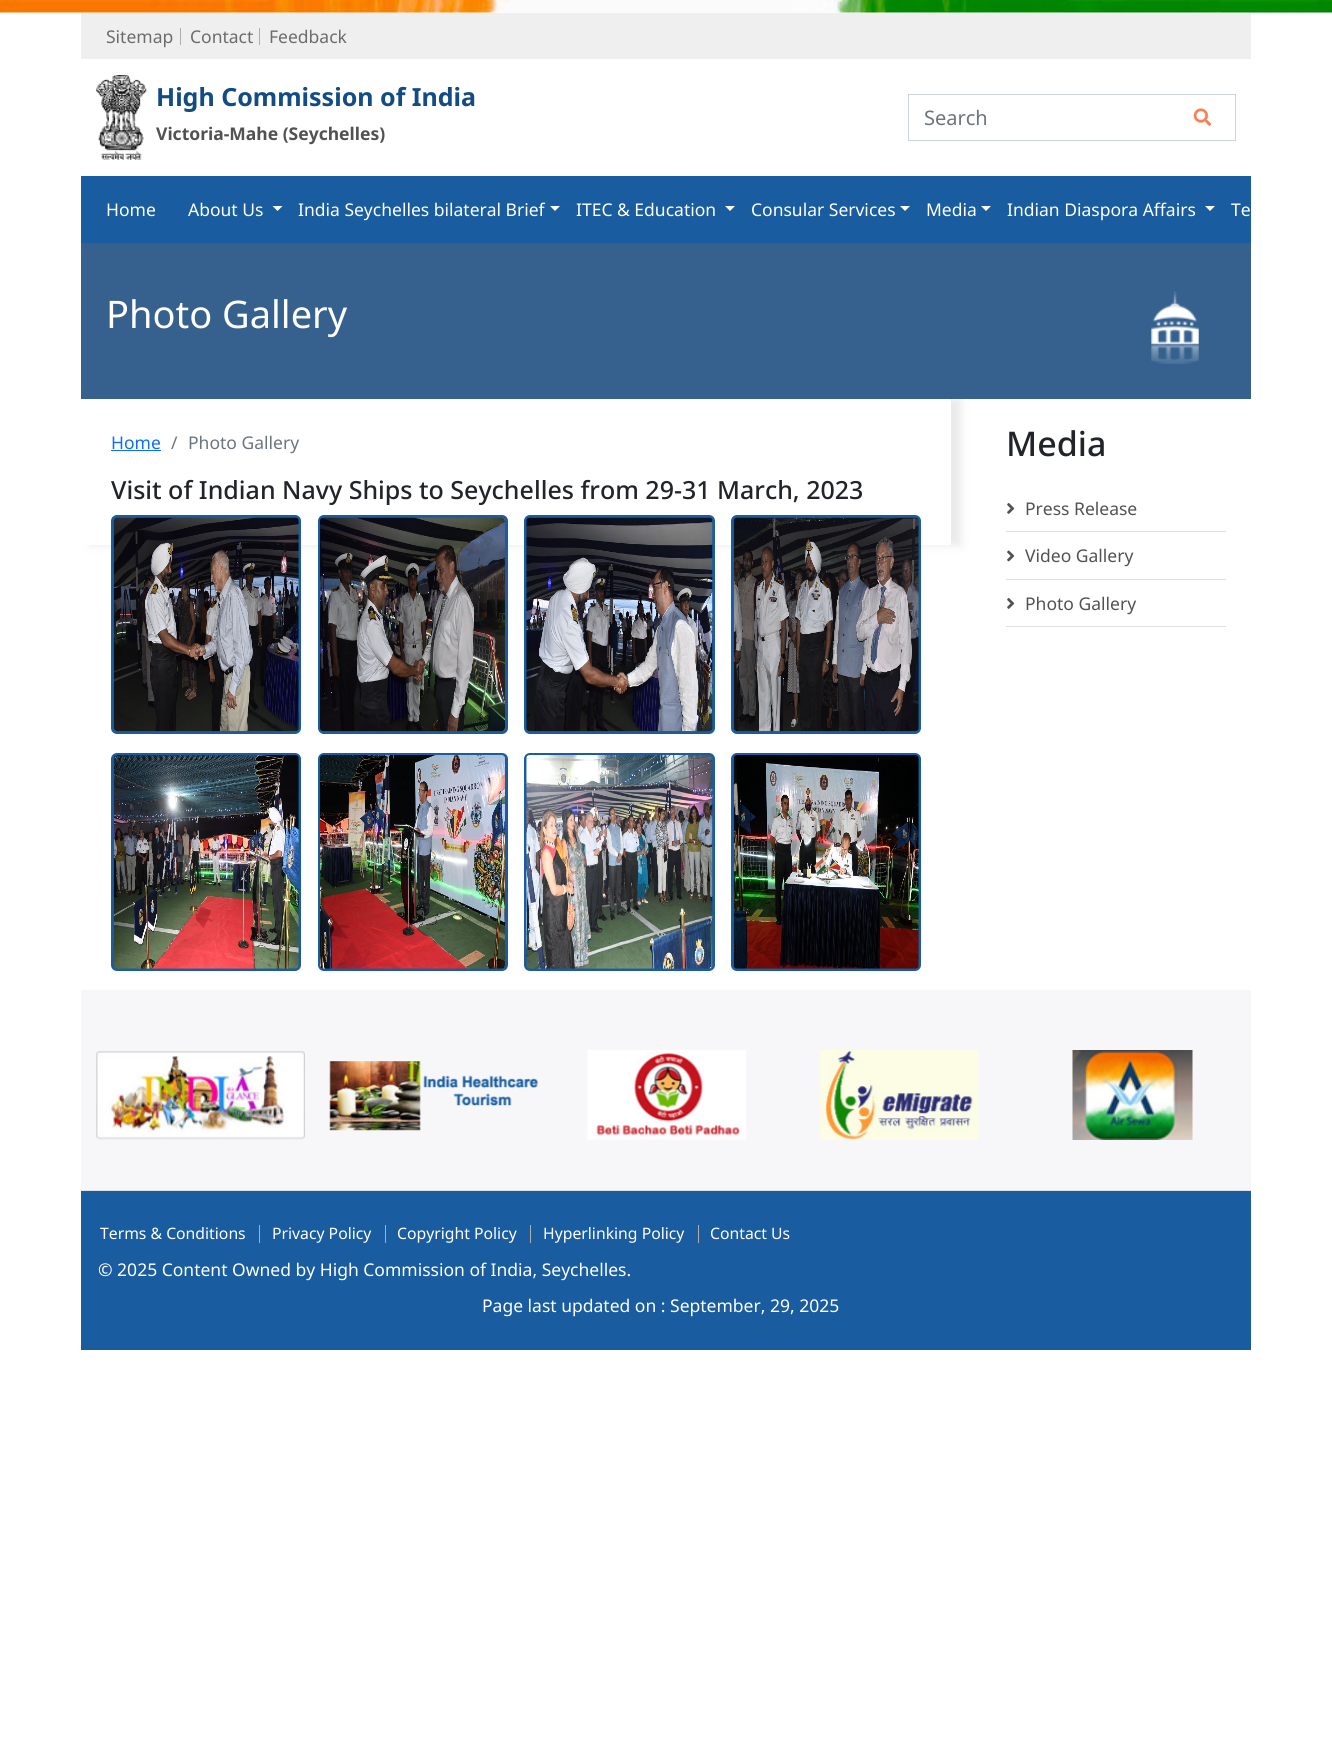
import math
import cairo


def round_path(ctx, x, y, w, h, r):
	ctx.new_sub_path()
	for i, (u, v) in enumerate([(x + w - r, y + h - r), (x + r, y + h - r), (x + r, y + r), (x + w - r, y + r)]):
		ctx.arc(u, v, r, i * math.pi / 2, (i + 1) * math.pi / 2)
	ctx.close_path()

def blur_box(ctx, x, y, w, h, r, blur, alpha):
	ctx.push_group_with_content(cairo.CONTENT_ALPHA)
	ctx.set_operator(cairo.OPERATOR_SOURCE)
	for i in range(15, -16, -2):
		e = blur * i / 6
		if min(w, h) + 2 * e > 0:
			ctx.set_source_rgba(0, 0, 0, alpha * math.erfc((i - 1) / 8.5) / 2)
			round_path(ctx, x - e, y - e, w + 2 * e, h + 2 * e, max(0, min(r + e + blur * .6, min(w, h) / 2 + e)))
			ctx.fill()
	ctx.mask(ctx.pop_group())

def paste(ctx, path, x, y, w, h):
	ctx.save()
	ctx.set_source_surface(cairo.ImageSurface.create_from_png(path), x, y)
	ctx.rectangle(x, y, w, h)
	ctx.fill()
	ctx.restore()

def draw(ctx):
	ctx.set_source_rgb(1, 1, 1)
	ctx.paint()
	paste(ctx, 'media/1.png', 0, 0, 1332, 13)
	ctx.set_source_rgb(0.937, 0.937, 0.937)
	ctx.rectangle(81, 13, 1170, 46)
	ctx.fill()
	ctx.select_font_face('Noto Sans')
	ctx.set_font_size(17.5)
	ctx.set_source_rgb(0.424, 0.424, 0.424)
	ctx.move_to(106, 43)
	ctx.show_text('Sitemap')
	ctx.set_source_rgb(0.678, 0.682, 0.682)
	ctx.rectangle(180, 28, 1, 17)
	ctx.fill()
	ctx.set_source_rgb(0.424, 0.424, 0.424)
	ctx.move_to(190, 43)
	ctx.show_text('Contact')
	ctx.set_source_rgb(0.678, 0.682, 0.682)
	ctx.rectangle(259, 28, 1, 17)
	ctx.fill()
	ctx.set_source_rgb(0.424, 0.424, 0.424)
	ctx.move_to(269, 43)
	ctx.show_text('Feedback')
	paste(ctx, 'media/2.png', 96, 75, 51, 85)
	ctx.select_font_face('Noto Sans', cairo.FONT_SLANT_NORMAL, cairo.FONT_WEIGHT_BOLD)
	ctx.set_font_size(25)
	ctx.set_source_rgb(0.078, 0.298, 0.518)
	ctx.move_to(156, 106)
	ctx.show_text('High Commission of India')
	ctx.set_font_size(17.5)
	ctx.set_source_rgb(0.322, 0.322, 0.322)
	ctx.move_to(156, 140)
	ctx.show_text('Victoria-Mahe (Seychelles)')
	ctx.rectangle(908.5, 94.5, 327, 46)
	ctx.set_source_rgb(0.808, 0.831, 0.855)
	ctx.set_line_width(1)
	ctx.stroke()
	ctx.select_font_face('Noto Sans')
	ctx.set_font_size(20)
	ctx.set_source_rgb(0.424, 0.459, 0.49)
	ctx.move_to(924, 125)
	ctx.show_text('Search')
	paste(ctx, 'media/3.png', 1193, 108, 19, 18)
	ctx.set_source_rgb(0.098, 0.361, 0.624)
	ctx.rectangle(81, 176, 1170, 67)
	ctx.fill()
	ctx.set_font_size(17.5)
	ctx.set_source_rgb(1, 1, 1)
	ctx.move_to(106, 216)
	ctx.show_text('Home')
	ctx.move_to(188, 216)
	ctx.show_text('About Us')
	ctx.new_path()
	ctx.move_to(272.5, 206)
	ctx.line_to(282.5, 206)
	ctx.line_to(277.5, 211)
	ctx.close_path()
	ctx.fill()
	ctx.move_to(298, 216)
	ctx.show_text('India Seychelles bilateral Brief')
	ctx.new_path()
	ctx.move_to(550, 206)
	ctx.line_to(560, 206)
	ctx.line_to(555, 211)
	ctx.close_path()
	ctx.fill()
	ctx.move_to(576, 216)
	ctx.show_text('ITEC & Education')
	ctx.new_path()
	ctx.move_to(725, 206)
	ctx.line_to(735, 206)
	ctx.line_to(730, 211)
	ctx.close_path()
	ctx.fill()
	ctx.move_to(751, 216)
	ctx.show_text('Consular Services')
	ctx.new_path()
	ctx.move_to(900, 206)
	ctx.line_to(910, 206)
	ctx.line_to(905, 211)
	ctx.close_path()
	ctx.fill()
	ctx.move_to(926, 216)
	ctx.show_text('Media')
	ctx.new_path()
	ctx.move_to(981, 206)
	ctx.line_to(991, 206)
	ctx.line_to(986, 211)
	ctx.close_path()
	ctx.fill()
	ctx.move_to(1007, 216)
	ctx.show_text('Indian Diaspora Affairs')
	ctx.new_path()
	ctx.move_to(1205, 206)
	ctx.line_to(1215, 206)
	ctx.line_to(1210, 211)
	ctx.close_path()
	ctx.fill()
	ctx.move_to(1231, 216)
	ctx.show_text('Te')
	ctx.save()
	ctx.set_fill_rule(cairo.FILL_RULE_EVEN_ODD)
	ctx.new_path()
	ctx.move_to(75, 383)
	ctx.line_to(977, 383)
	ctx.line_to(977, 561)
	ctx.line_to(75, 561)
	ctx.close_path()
	ctx.move_to(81, 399)
	ctx.line_to(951, 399)
	ctx.line_to(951, 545)
	ctx.line_to(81, 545)
	ctx.close_path()
	ctx.clip()
	ctx.set_source_rgb(0, 0, 0)
	blur_box(ctx, 91, 399, 870, 146, 0, 5, 0.09)
	ctx.restore()
	ctx.set_source_rgb(0.212, 0.38, 0.557)
	ctx.rectangle(81, 243, 1170, 156)
	ctx.fill()
	ctx.set_font_size(38)
	ctx.set_source_rgb(1, 1, 1)
	ctx.move_to(106, 328)
	ctx.show_text('Photo Gallery')
	paste(ctx, 'media/4.png', 1151, 291, 48, 73)
	ctx.set_font_size(17.5)
	ctx.set_source_rgb(0.051, 0.431, 0.992)
	ctx.move_to(111, 449)
	ctx.show_text('Home')
	ctx.rectangle(111, 450, 50, 1)
	ctx.fill()
	ctx.set_source_rgb(0.424, 0.459, 0.49)
	ctx.move_to(171, 449)
	ctx.show_text('/')
	ctx.move_to(188, 449)
	ctx.show_text('Photo Gallery')
	ctx.select_font_face('Noto Sans Medium')
	ctx.set_font_size(25)
	ctx.set_source_rgb(0.129, 0.145, 0.161)
	ctx.move_to(111, 499)
	ctx.show_text('Visit of Indian Navy Ships to Seychelles from 29-31 March, 2023')
	round_path(ctx, 112.5, 516.5, 187, 216, 4.5)
	ctx.set_source_rgb(0.098, 0.361, 0.624)
	ctx.set_line_width(3)
	ctx.stroke()
	paste(ctx, 'media/5.png', 113, 517, 186, 215)
	round_path(ctx, 319.5, 516.5, 187, 216, 4.5)
	ctx.stroke()
	paste(ctx, 'media/6.png', 320, 517, 185, 215)
	round_path(ctx, 525.5, 516.5, 188, 216, 4.5)
	ctx.stroke()
	paste(ctx, 'media/7.png', 526, 517, 187, 215)
	round_path(ctx, 732.5, 516.5, 187, 216, 4.5)
	ctx.stroke()
	paste(ctx, 'media/8.png', 733, 517, 186, 215)
	round_path(ctx, 112.5, 754.5, 187, 215, 4.5)
	ctx.stroke()
	paste(ctx, 'media/9.png', 113, 755, 186, 214)
	round_path(ctx, 319.5, 754.5, 187, 215, 4.5)
	ctx.stroke()
	paste(ctx, 'media/10.png', 320, 755, 185, 214)
	round_path(ctx, 525.5, 754.5, 188, 215, 4.5)
	ctx.stroke()
	paste(ctx, 'media/11.png', 526, 755, 187, 214)
	round_path(ctx, 732.5, 754.5, 187, 215, 4.5)
	ctx.stroke()
	paste(ctx, 'media/12.png', 733, 755, 186, 214)
	ctx.set_font_size(34)
	ctx.set_source_rgb(0.129, 0.145, 0.161)
	ctx.move_to(1006, 456)
	ctx.show_text('Media')
	ctx.set_source_rgb(0.871, 0.886, 0.902)
	ctx.rectangle(1006, 531, 220, 1)
	ctx.fill()
	paste(ctx, 'media/13.png', 1007, 503, 8, 11)
	ctx.select_font_face('Noto Sans')
	ctx.set_font_size(17.5)
	ctx.set_source_rgb(0.322, 0.322, 0.322)
	ctx.move_to(1025, 515)
	ctx.show_text('Press Release')
	ctx.set_source_rgb(0.871, 0.886, 0.902)
	ctx.rectangle(1006, 579, 220, 1)
	ctx.fill()
	paste(ctx, 'media/14.png', 1007, 550, 8, 12)
	ctx.set_source_rgb(0.322, 0.322, 0.322)
	ctx.move_to(1025, 562)
	ctx.show_text('Video Gallery')
	ctx.set_source_rgb(0.871, 0.886, 0.902)
	ctx.rectangle(1006, 626, 220, 1)
	ctx.fill()
	paste(ctx, 'media/13.png', 1007, 598, 8, 11)
	ctx.set_source_rgb(0.322, 0.322, 0.322)
	ctx.move_to(1025, 610)
	ctx.show_text('Photo Gallery')
	ctx.set_source_rgb(0.965, 0.965, 0.98)
	ctx.rectangle(81, 990, 1170, 200)
	ctx.fill()
	ctx.set_source_rgb(0.871, 0.886, 0.902)
	ctx.rectangle(81, 1190, 1170, 1)
	ctx.fill()
	paste(ctx, 'media/15.png', 96, 1051, 209, 89)
	paste(ctx, 'media/16.png', 329, 1061, 209, 70)
	paste(ctx, 'media/17.png', 587, 1050, 159, 90)
	paste(ctx, 'media/18.png', 819, 1050, 160, 90)
	paste(ctx, 'media/19.png', 1072, 1050, 121, 90)
	ctx.set_source_rgb(0.098, 0.361, 0.624)
	ctx.rectangle(81, 1191, 1170, 159)
	ctx.fill()
	ctx.set_font_size(15.75)
	ctx.set_source_rgb(1, 1, 1)
	ctx.move_to(100, 1239)
	ctx.show_text('Terms & Conditions')
	ctx.set_source_rgb(0.678, 0.682, 0.682)
	ctx.rectangle(259, 1225, 1, 18)
	ctx.fill()
	ctx.set_source_rgb(1, 1, 1)
	ctx.move_to(272, 1239)
	ctx.show_text('Privacy Policy')
	ctx.set_source_rgb(0.678, 0.682, 0.682)
	ctx.rectangle(385, 1225, 1, 18)
	ctx.fill()
	ctx.set_source_rgb(1, 1, 1)
	ctx.move_to(397, 1239)
	ctx.show_text('Copyright Policy')
	ctx.set_source_rgb(0.678, 0.682, 0.682)
	ctx.rectangle(530, 1225, 1, 18)
	ctx.fill()
	ctx.set_source_rgb(1, 1, 1)
	ctx.move_to(543, 1239)
	ctx.show_text('Hyperlinking Policy')
	ctx.set_source_rgb(0.678, 0.682, 0.682)
	ctx.rectangle(698, 1225, 1, 18)
	ctx.fill()
	ctx.set_source_rgb(1, 1, 1)
	ctx.move_to(710, 1239)
	ctx.show_text('Contact Us')
	ctx.set_font_size(17.5)
	ctx.move_to(98, 1276)
	ctx.show_text('© 2025 Content Owned by High Commission of India, Seychelles.')
	ctx.move_to(482, 1312)
	ctx.show_text('Page last updated on : September, 29, 2025')


surface = cairo.ImageSurface(cairo.FORMAT_RGB24, 1332, 1751)
ctx = cairo.Context(surface)
options = cairo.FontOptions()
options.set_hint_metrics(cairo.HINT_METRICS_OFF)
options.set_hint_style(cairo.HINT_STYLE_NONE)
ctx.set_font_options(options)
ctx.set_miter_limit(4)
draw(ctx)
surface.write_to_png('image.png')
